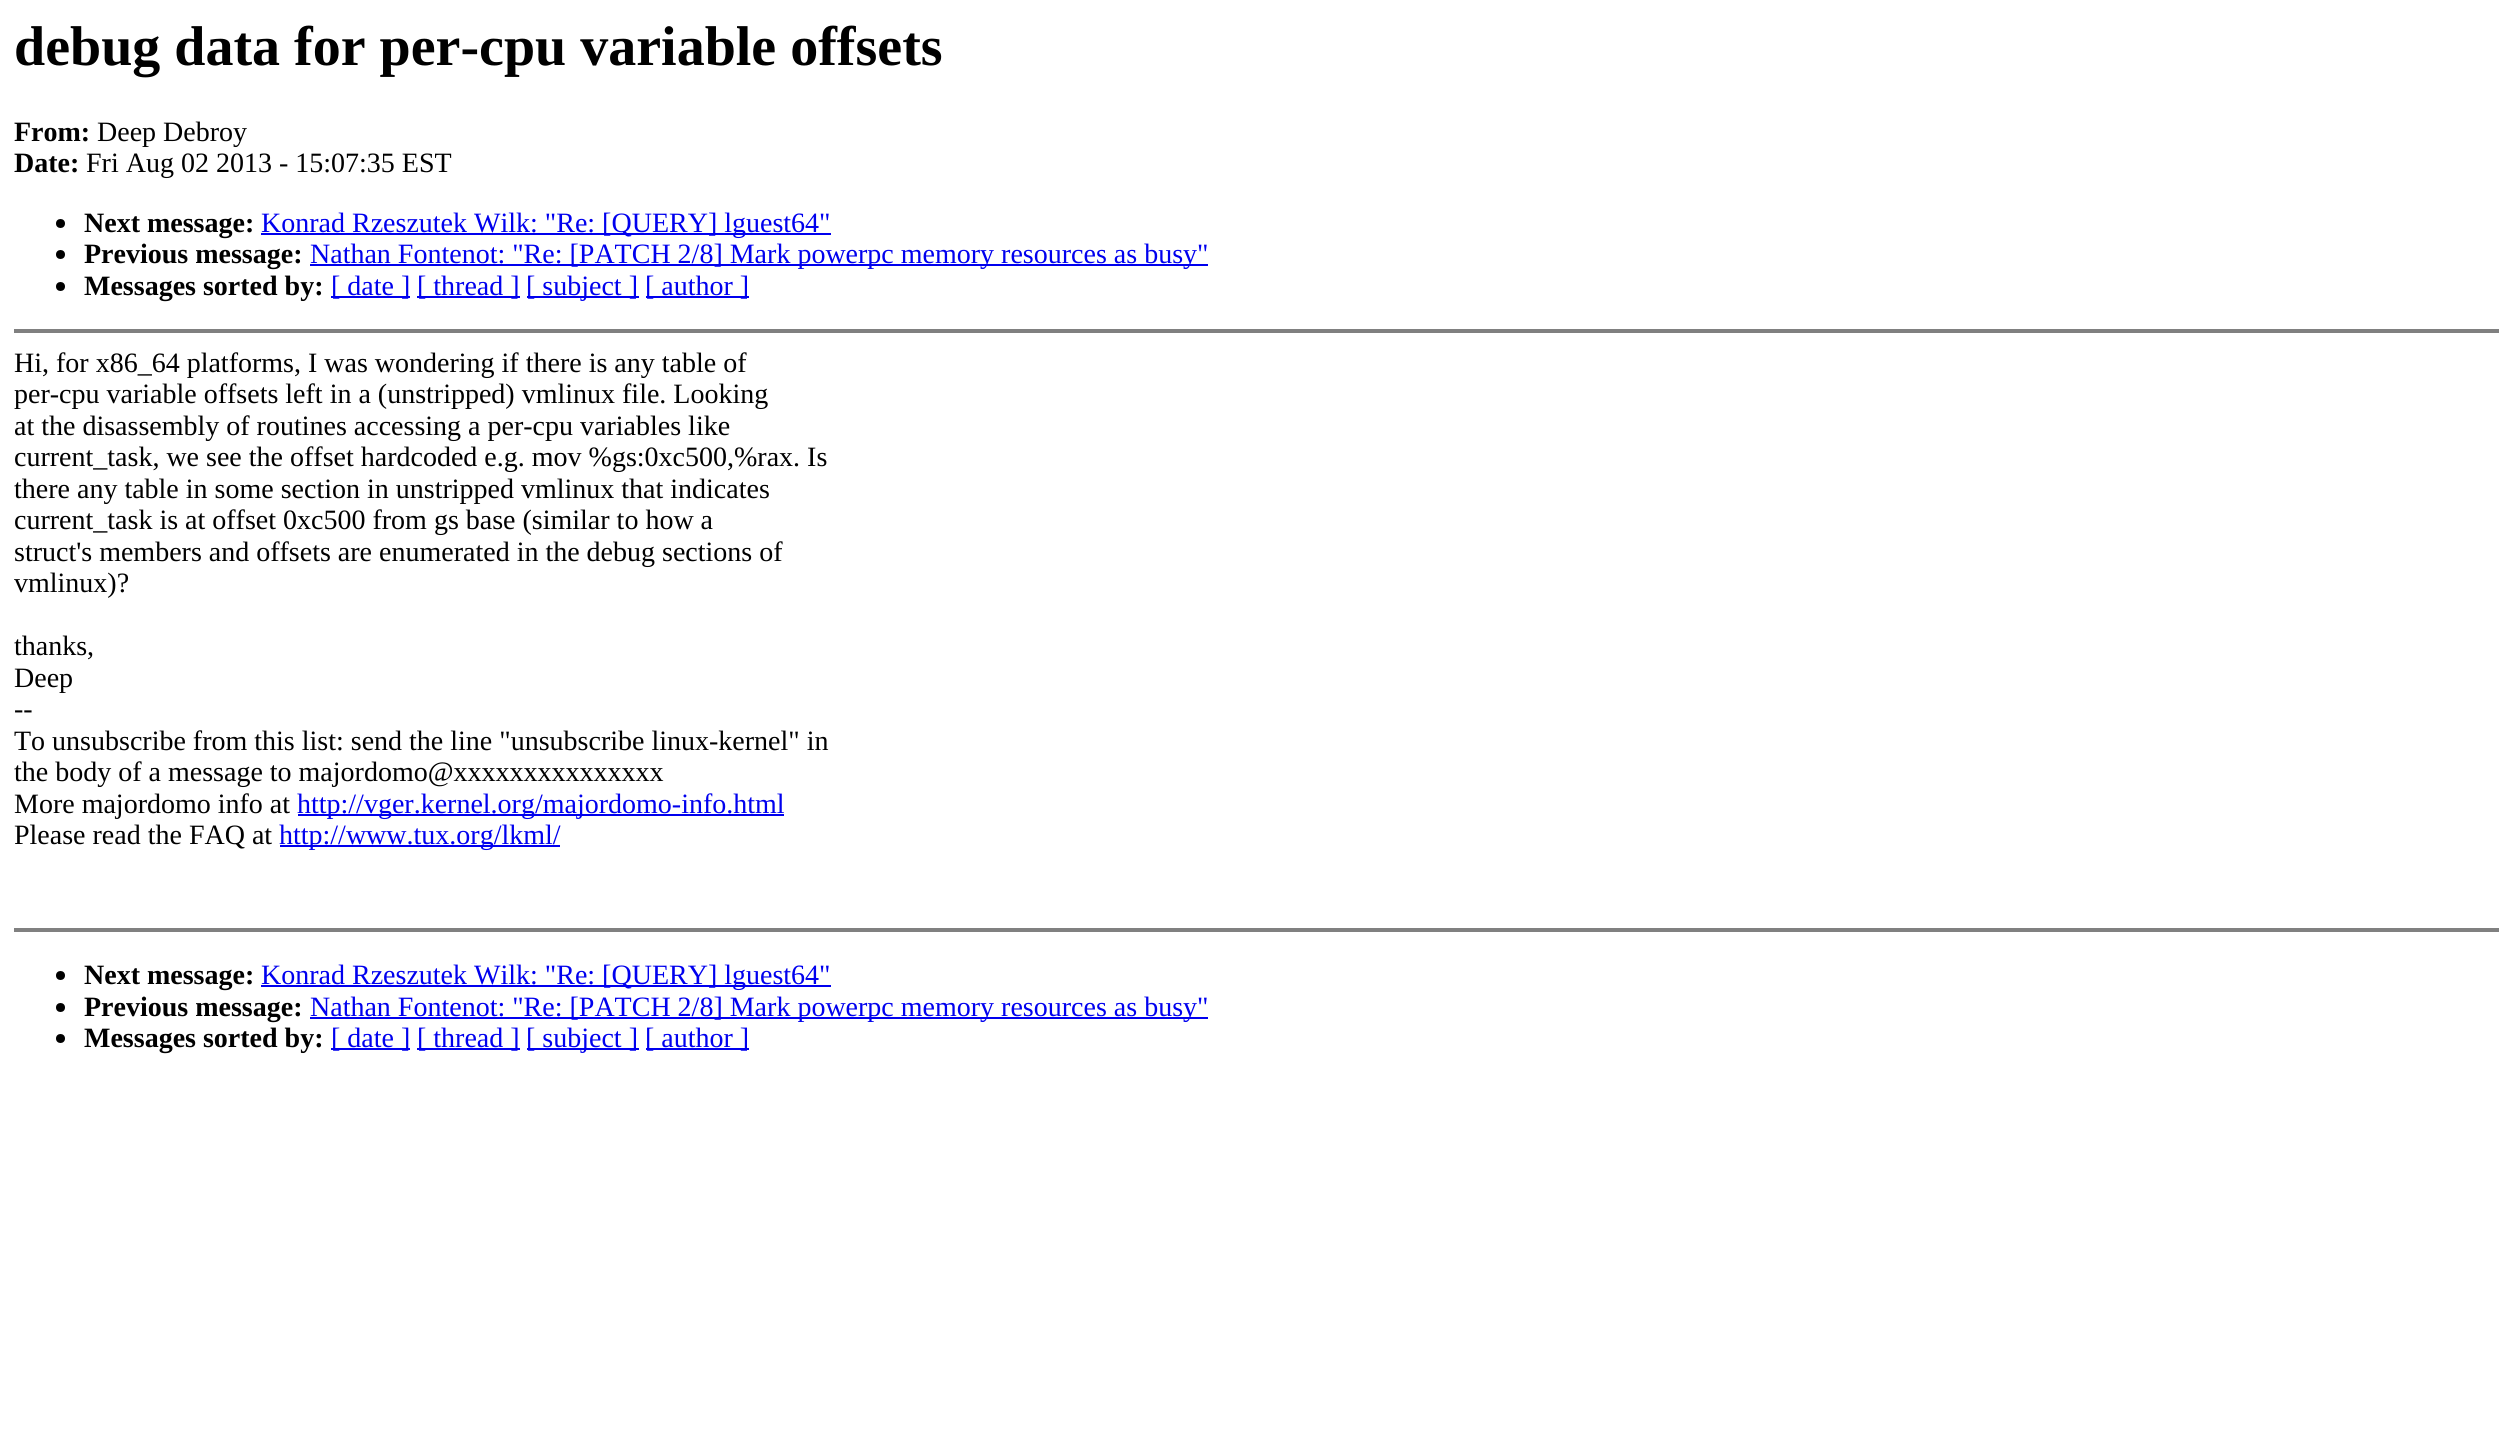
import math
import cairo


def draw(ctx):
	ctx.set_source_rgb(1, 1, 1)
	ctx.paint()
	ctx.select_font_face('Liberation Serif', cairo.FONT_SLANT_NORMAL, cairo.FONT_WEIGHT_BOLD)
	ctx.set_font_size(56)
	ctx.set_source_rgb(0, 0, 0)
	ctx.move_to(14, 65)
	ctx.show_text('debug data for per-cpu variable offsets')
	ctx.set_font_size(28)
	ctx.move_to(14, 141)
	ctx.show_text('From:')
	ctx.select_font_face('Liberation Serif')
	ctx.move_to(97, 141)
	ctx.show_text('Deep Debroy')
	ctx.select_font_face('Liberation Serif', cairo.FONT_SLANT_NORMAL, cairo.FONT_WEIGHT_BOLD)
	ctx.move_to(14, 172)
	ctx.show_text('Date:')
	ctx.select_font_face('Liberation Serif')
	ctx.move_to(86, 172)
	ctx.show_text('Fri Aug 02 2013 - 15:07:35 EST')
	ctx.new_path()
	ctx.arc(60.5, 223.5, 4.5, 0, 2 * math.pi)
	ctx.fill()
	ctx.select_font_face('Liberation Serif', cairo.FONT_SLANT_NORMAL, cairo.FONT_WEIGHT_BOLD)
	ctx.move_to(84, 232)
	ctx.show_text('Next message:')
	ctx.set_source_rgb(0, 0, 0.933)
	ctx.rectangle(261, 233, 570, 2)
	ctx.fill()
	ctx.select_font_face('Liberation Serif')
	ctx.move_to(261, 232)
	ctx.show_text('Konrad Rzeszutek Wilk: "Re: [QUERY] lguest64"')
	ctx.set_source_rgb(0, 0, 0)
	ctx.new_path()
	ctx.arc(60.5, 254.5, 4.5, 0, 2 * math.pi)
	ctx.fill()
	ctx.select_font_face('Liberation Serif', cairo.FONT_SLANT_NORMAL, cairo.FONT_WEIGHT_BOLD)
	ctx.move_to(84, 263)
	ctx.show_text('Previous message:')
	ctx.set_source_rgb(0, 0, 0.933)
	ctx.rectangle(310, 264, 898, 2)
	ctx.fill()
	ctx.select_font_face('Liberation Serif')
	ctx.move_to(310, 263)
	ctx.show_text('Nathan Fontenot: "Re: [PATCH 2/8] Mark powerpc memory resources as busy"')
	ctx.set_source_rgb(0, 0, 0)
	ctx.new_path()
	ctx.arc(60.5, 286.5, 4.5, 0, 2 * math.pi)
	ctx.fill()
	ctx.select_font_face('Liberation Serif', cairo.FONT_SLANT_NORMAL, cairo.FONT_WEIGHT_BOLD)
	ctx.move_to(84, 295)
	ctx.show_text('Messages sorted by:')
	ctx.set_source_rgb(0, 0, 0.933)
	ctx.rectangle(331, 296, 79, 2)
	ctx.fill()
	ctx.select_font_face('Liberation Serif')
	ctx.move_to(331, 295)
	ctx.show_text('[ date ]')
	ctx.rectangle(417, 296, 103, 2)
	ctx.fill()
	ctx.move_to(417, 295)
	ctx.show_text('[ thread ]')
	ctx.rectangle(527, 296, 112, 2)
	ctx.fill()
	ctx.move_to(526, 295)
	ctx.show_text('[ subject ]')
	ctx.rectangle(646, 296, 103, 2)
	ctx.fill()
	ctx.move_to(645, 295)
	ctx.show_text('[ author ]')
	ctx.set_source_rgb(0.502, 0.502, 0.502)
	ctx.rectangle(14, 329, 2485, 4)
	ctx.fill()
	ctx.set_source_rgb(0, 0, 0)
	for x, y, s in [
		(14, 372, 'Hi, for x86_64 platforms, I was wondering if there is any table of'),
		(14, 403, 'per-cpu variable offsets left in a (unstripped) vmlinux file. Looking'),
		(14, 435, 'at the disassembly of routines accessing a per-cpu variables like'),
		(14, 466, 'current_task, we see the offset hardcoded e.g. mov %gs:0xc500,%rax. Is'),
		(14, 498, 'there any table in some section in unstripped vmlinux that indicates'),
		(14, 529, 'current_task is at offset 0xc500 from gs base (similar to how a'),
		(14, 561, 'struct\'s members and offsets are enumerated in the debug sections of'),
		(14, 592, 'vmlinux)?'),
		(14, 655, 'thanks,'),
		(14, 687, 'Deep'),
		(14, 718, '--'),
		(14, 750, 'To unsubscribe from this list: send the line "unsubscribe linux-kernel" in'),
		(14, 781, 'the body of a message to majordomo@xxxxxxxxxxxxxxx'),
		(14, 813, 'More majordomo info at'),
	]:
		ctx.move_to(x, y)
		ctx.show_text(s)
	ctx.set_source_rgb(0, 0, 0.933)
	ctx.rectangle(298, 814, 486, 2)
	ctx.fill()
	ctx.move_to(297, 813)
	ctx.show_text('http://vger.kernel.org/majordomo-info.html')
	ctx.set_source_rgb(0, 0, 0)
	ctx.move_to(14, 844)
	ctx.show_text('Please read the FAQ at')
	ctx.set_source_rgb(0, 0, 0.933)
	ctx.rectangle(280, 845, 280, 2)
	ctx.fill()
	ctx.move_to(279, 844)
	ctx.show_text('http://www.tux.org/lkml/')
	ctx.set_source_rgb(0.502, 0.502, 0.502)
	ctx.rectangle(14, 928, 2485, 4)
	ctx.fill()
	ctx.set_source_rgb(0, 0, 0)
	ctx.arc(60.5, 975.5, 4.5, 0, 2 * math.pi)
	ctx.fill()
	ctx.select_font_face('Liberation Serif', cairo.FONT_SLANT_NORMAL, cairo.FONT_WEIGHT_BOLD)
	ctx.move_to(84, 984)
	ctx.show_text('Next message:')
	ctx.set_source_rgb(0, 0, 0.933)
	ctx.rectangle(261, 985, 570, 2)
	ctx.fill()
	ctx.select_font_face('Liberation Serif')
	ctx.move_to(261, 984)
	ctx.show_text('Konrad Rzeszutek Wilk: "Re: [QUERY] lguest64"')
	ctx.set_source_rgb(0, 0, 0)
	ctx.new_path()
	ctx.arc(60.5, 1007.5, 4.5, 0, 2 * math.pi)
	ctx.fill()
	ctx.select_font_face('Liberation Serif', cairo.FONT_SLANT_NORMAL, cairo.FONT_WEIGHT_BOLD)
	ctx.move_to(84, 1016)
	ctx.show_text('Previous message:')
	ctx.set_source_rgb(0, 0, 0.933)
	ctx.rectangle(310, 1017, 898, 2)
	ctx.fill()
	ctx.select_font_face('Liberation Serif')
	ctx.move_to(310, 1016)
	ctx.show_text('Nathan Fontenot: "Re: [PATCH 2/8] Mark powerpc memory resources as busy"')
	ctx.set_source_rgb(0, 0, 0)
	ctx.new_path()
	ctx.arc(60.5, 1038.5, 4.5, 0, 2 * math.pi)
	ctx.fill()
	ctx.select_font_face('Liberation Serif', cairo.FONT_SLANT_NORMAL, cairo.FONT_WEIGHT_BOLD)
	ctx.move_to(84, 1047)
	ctx.show_text('Messages sorted by:')
	ctx.set_source_rgb(0, 0, 0.933)
	ctx.rectangle(331, 1048, 79, 2)
	ctx.fill()
	ctx.select_font_face('Liberation Serif')
	ctx.move_to(331, 1047)
	ctx.show_text('[ date ]')
	ctx.rectangle(417, 1048, 103, 2)
	ctx.fill()
	ctx.move_to(417, 1047)
	ctx.show_text('[ thread ]')
	ctx.rectangle(527, 1048, 112, 2)
	ctx.fill()
	ctx.move_to(526, 1047)
	ctx.show_text('[ subject ]')
	ctx.rectangle(646, 1048, 103, 2)
	ctx.fill()
	ctx.move_to(645, 1047)
	ctx.show_text('[ author ]')


surface = cairo.ImageSurface(cairo.FORMAT_RGB24, 2513, 1452)
ctx = cairo.Context(surface)
options = cairo.FontOptions()
options.set_hint_metrics(cairo.HINT_METRICS_OFF)
options.set_hint_style(cairo.HINT_STYLE_NONE)
ctx.set_font_options(options)
ctx.set_miter_limit(4)
draw(ctx)
surface.write_to_png('image.png')
